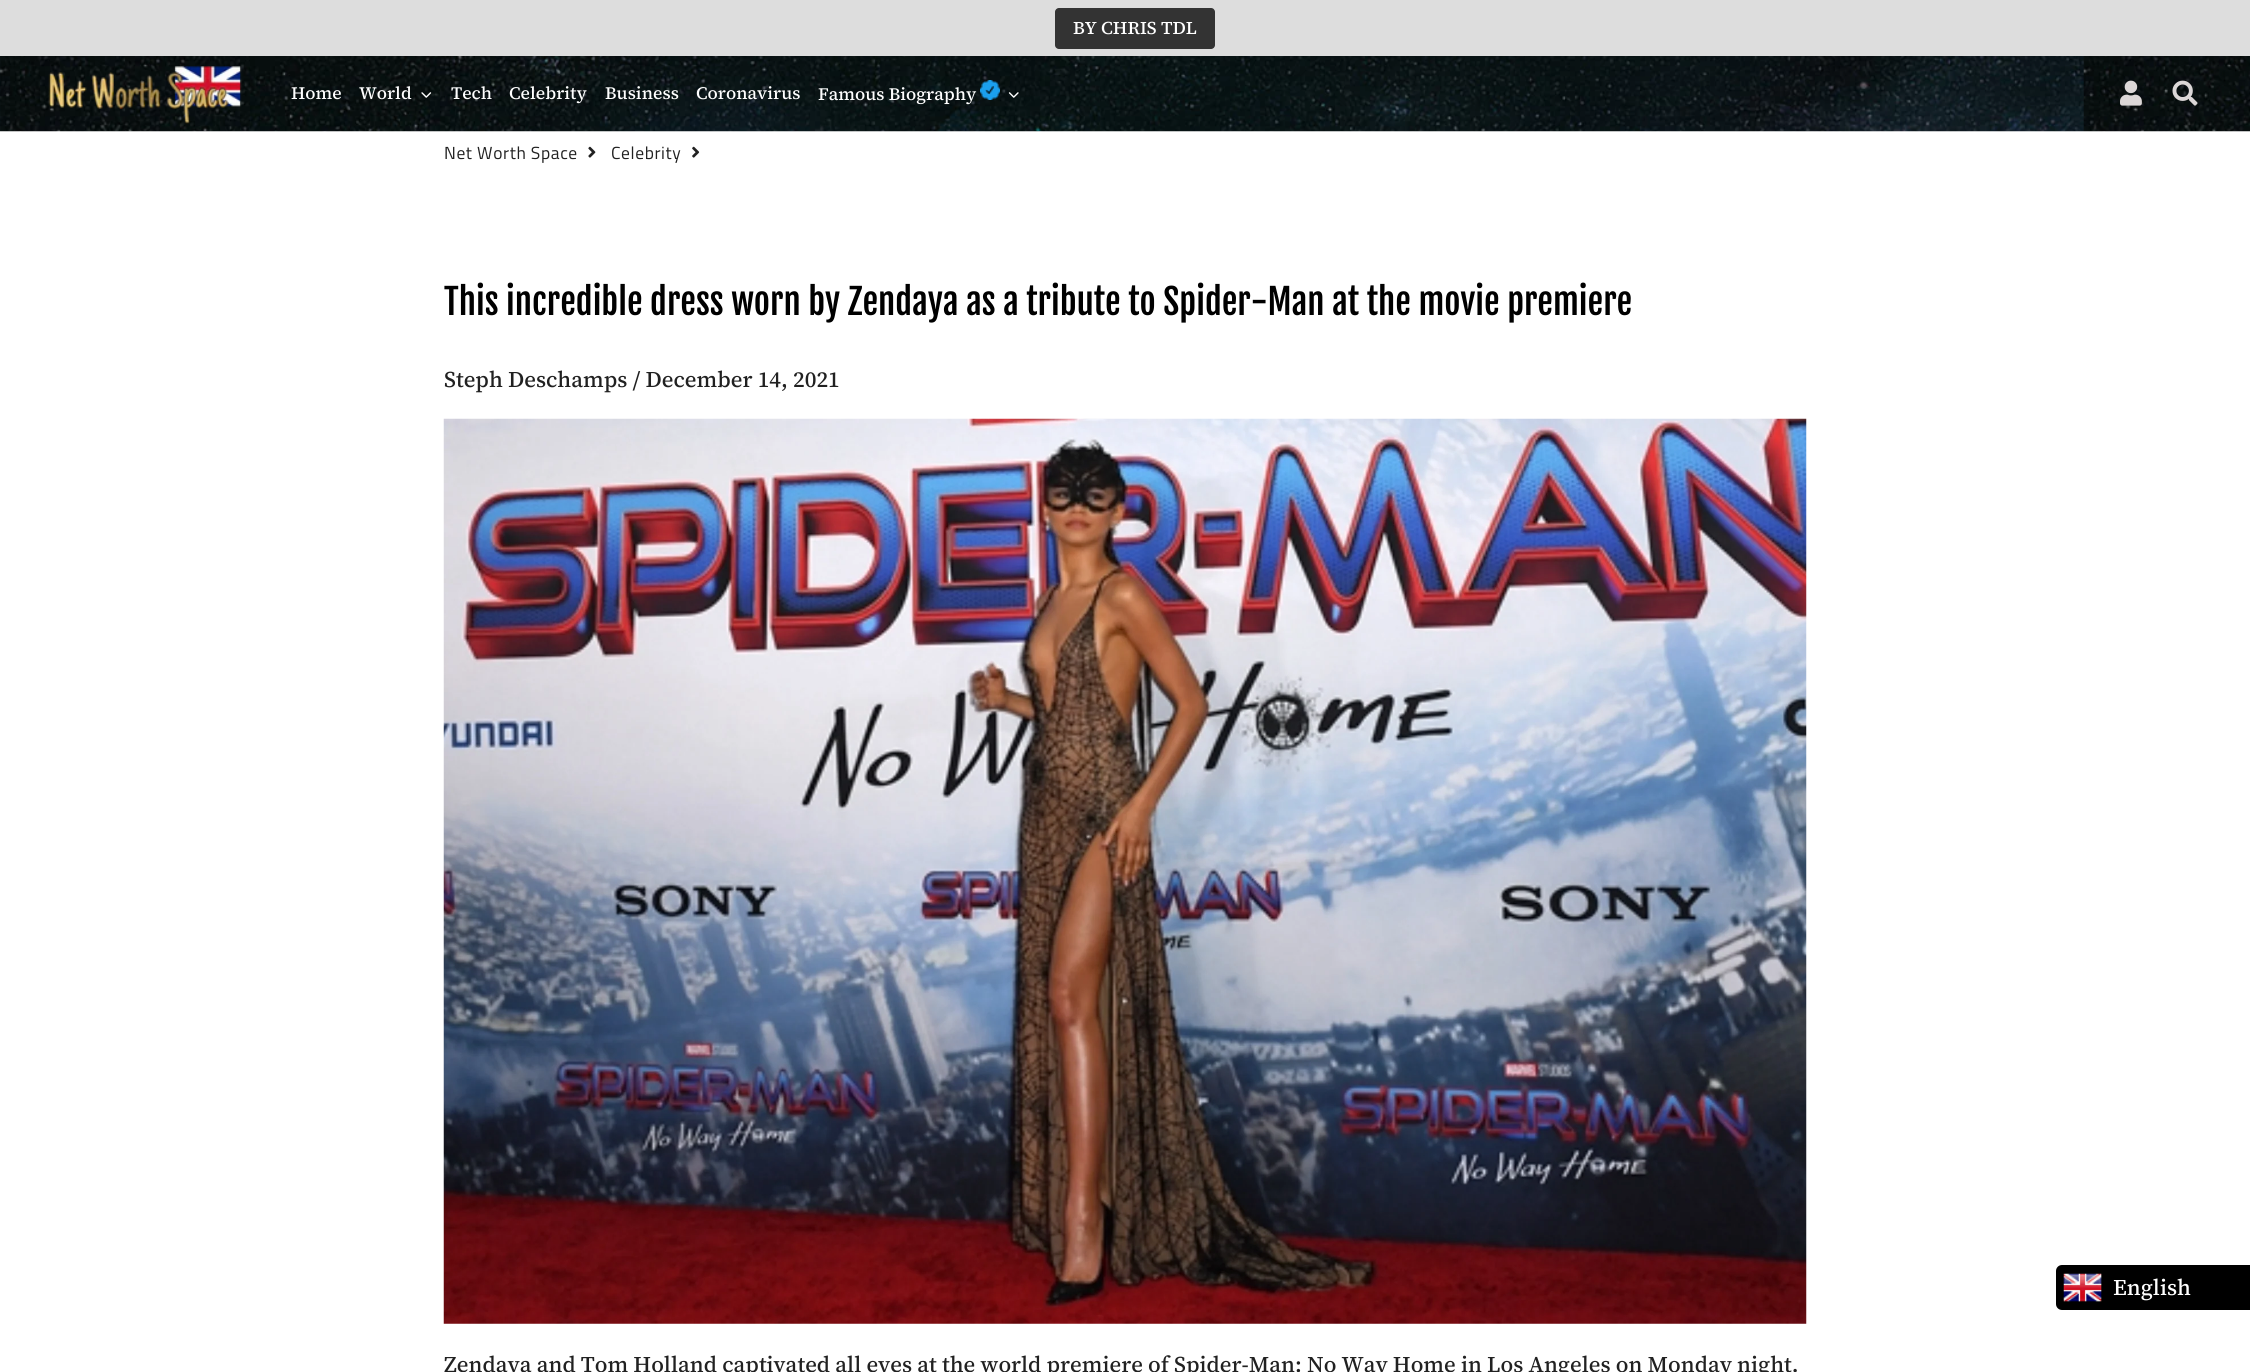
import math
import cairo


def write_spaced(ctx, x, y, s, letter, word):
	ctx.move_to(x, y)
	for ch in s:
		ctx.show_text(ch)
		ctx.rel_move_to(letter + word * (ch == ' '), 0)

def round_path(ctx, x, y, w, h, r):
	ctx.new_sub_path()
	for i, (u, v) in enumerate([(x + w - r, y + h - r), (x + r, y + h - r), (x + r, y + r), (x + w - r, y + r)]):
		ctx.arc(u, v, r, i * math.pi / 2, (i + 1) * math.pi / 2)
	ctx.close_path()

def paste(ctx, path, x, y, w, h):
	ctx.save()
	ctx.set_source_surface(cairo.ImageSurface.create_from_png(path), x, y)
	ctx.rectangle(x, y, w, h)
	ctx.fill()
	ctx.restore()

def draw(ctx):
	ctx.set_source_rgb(1, 1, 1)
	ctx.paint()
	ctx.set_source_rgb(0.867, 0.867, 0.867)
	ctx.rectangle(0, 0, 2250, 56)
	ctx.fill()
	ctx.set_source_rgb(0.2, 0.2, 0.2)
	round_path(ctx, 1055, 8, 160, 41, 4)
	ctx.fill()
	ctx.select_font_face('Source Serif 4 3 Medium')
	ctx.set_font_size(18)
	ctx.set_source_rgb(1, 1, 1)
	ctx.move_to(1073, 34)
	ctx.show_text('BY CHRIS TDL')
	paste(ctx, 'media/1.png', 0, 56, 2250, 76)
	paste(ctx, 'media/2.png', 48, 66, 194, 58)
	ctx.select_font_face('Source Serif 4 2 Medium')
	ctx.set_font_size(17.5)
	ctx.move_to(291, 99)
	ctx.show_text('Home')
	ctx.move_to(359, 99)
	ctx.show_text('World')
	paste(ctx, 'media/3.png', 421, 92, 11, 6)
	for x, y, s in [
		(451, 99, 'Tech'),
		(509, 99, 'Celebrity'),
		(605, 99, 'Business'),
		(696, 99, 'Coronavirus'),
		(818, 100, 'Famous Biography'),
	]:
		ctx.move_to(x, y)
		ctx.show_text(s)
	paste(ctx, 'media/4.png', 980, 80, 20, 20)
	paste(ctx, 'media/5.png', 1008, 92, 11, 6)
	paste(ctx, 'media/6.png', 2120, 80, 22, 26)
	paste(ctx, 'media/7.png', 2172, 80, 26, 26)
	ctx.select_font_face('Titillium Web')
	ctx.set_source_rgb(0.129, 0.129, 0.129)
	write_spaced(ctx, 444, 159, 'Net Worth Space', 0.6, 0)
	paste(ctx, 'media/8.png', 588, 146, 8, 12)
	write_spaced(ctx, 611, 159, 'Celebrity', 0.6, 0)
	paste(ctx, 'media/9.png', 692, 146, 8, 12)
	ctx.select_font_face('Fjalla One')
	ctx.set_font_size(35)
	ctx.set_source_rgb(0, 0, 0)
	ctx.move_to(444, 315)
	ctx.show_text('This incredible dress worn by Zendaya as a tribute to Spider-Man at the movie premiere')
	ctx.select_font_face('Source Serif 4 Medium')
	ctx.set_font_size(22.5)
	ctx.set_source_rgb(0.129, 0.129, 0.129)
	ctx.move_to(444, 387)
	ctx.show_text('Steph Deschamps / December 14, 2021')
	paste(ctx, 'media/10.png', 443, 418, 1364, 906)
	ctx.move_to(444, 1372)
	ctx.show_text('Zendaya and Tom Holland captivated all eyes at the world premiere of Spider-Man: No Way Home in Los Angeles on Monday night.')
	ctx.set_source_rgb(0, 0, 0)
	round_path(ctx, 2056, 1265, 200, 45, 6)
	ctx.fill()
	paste(ctx, 'media/11.png', 2063, 1273, 39, 29)
	ctx.set_source_rgb(1, 1, 1)
	ctx.move_to(2113, 1295)
	ctx.show_text('English')


surface = cairo.ImageSurface(cairo.FORMAT_RGB24, 2250, 1372)
ctx = cairo.Context(surface)
options = cairo.FontOptions()
options.set_hint_metrics(cairo.HINT_METRICS_OFF)
options.set_hint_style(cairo.HINT_STYLE_NONE)
ctx.set_font_options(options)
ctx.set_miter_limit(4)
draw(ctx)
surface.write_to_png('image.png')
